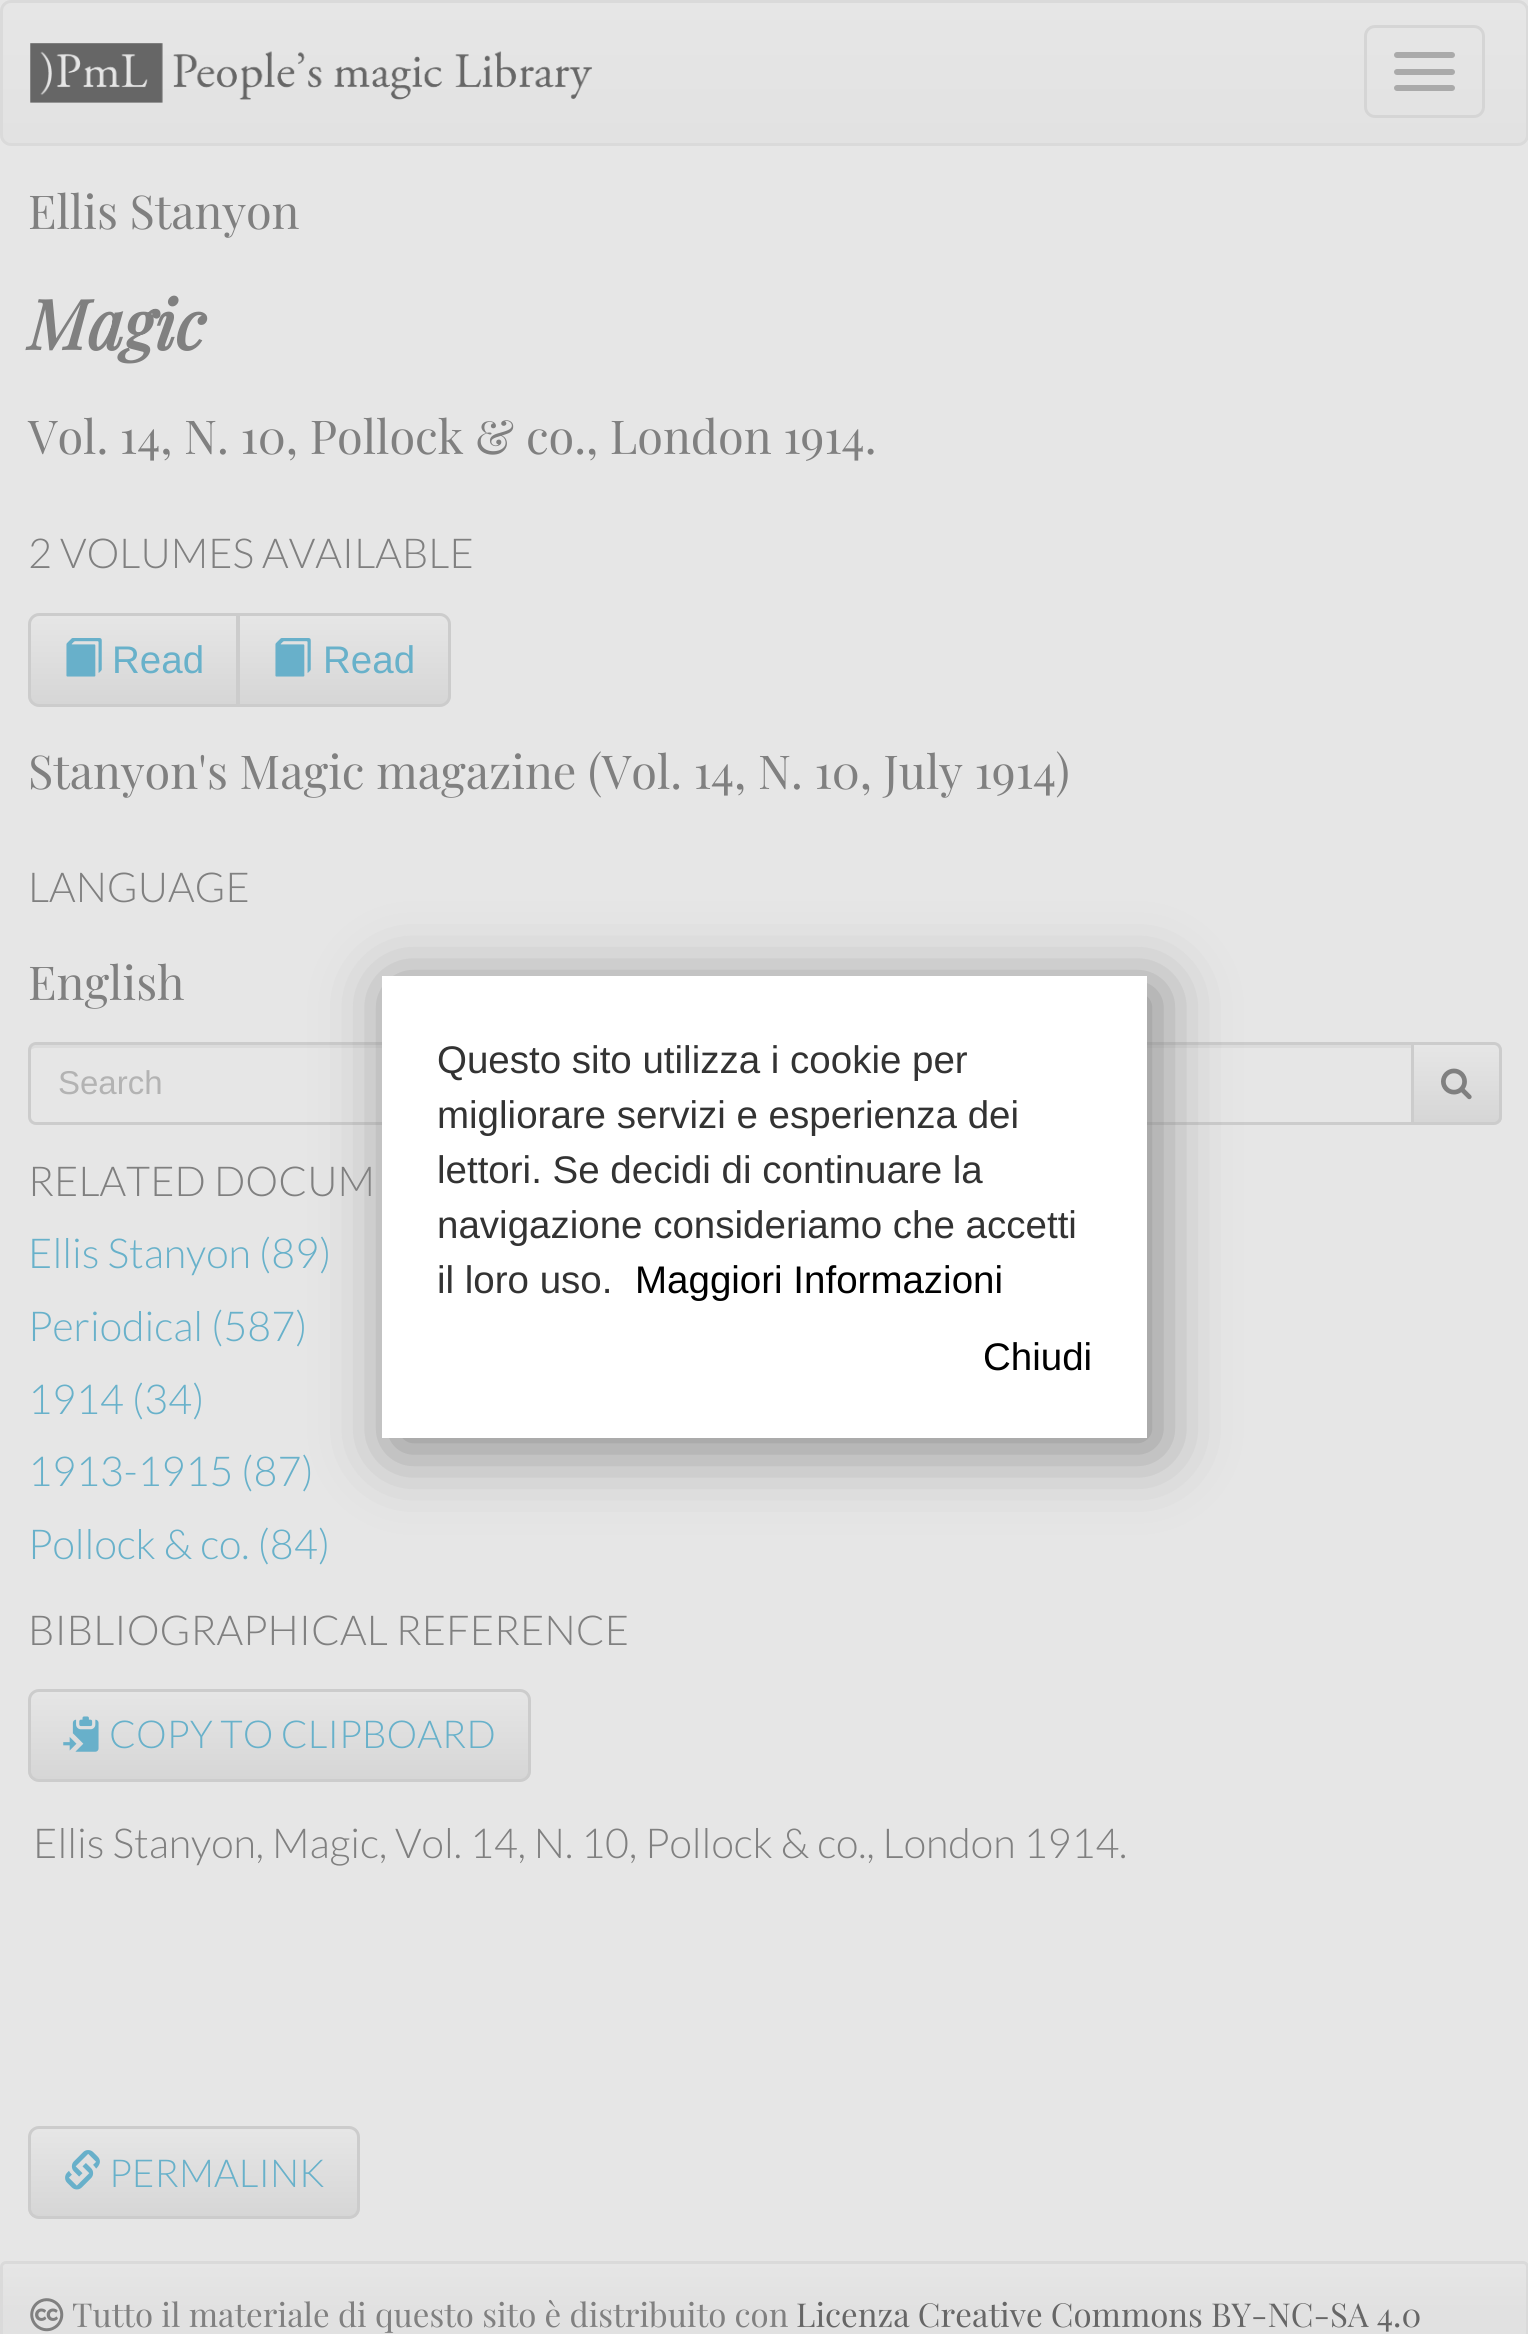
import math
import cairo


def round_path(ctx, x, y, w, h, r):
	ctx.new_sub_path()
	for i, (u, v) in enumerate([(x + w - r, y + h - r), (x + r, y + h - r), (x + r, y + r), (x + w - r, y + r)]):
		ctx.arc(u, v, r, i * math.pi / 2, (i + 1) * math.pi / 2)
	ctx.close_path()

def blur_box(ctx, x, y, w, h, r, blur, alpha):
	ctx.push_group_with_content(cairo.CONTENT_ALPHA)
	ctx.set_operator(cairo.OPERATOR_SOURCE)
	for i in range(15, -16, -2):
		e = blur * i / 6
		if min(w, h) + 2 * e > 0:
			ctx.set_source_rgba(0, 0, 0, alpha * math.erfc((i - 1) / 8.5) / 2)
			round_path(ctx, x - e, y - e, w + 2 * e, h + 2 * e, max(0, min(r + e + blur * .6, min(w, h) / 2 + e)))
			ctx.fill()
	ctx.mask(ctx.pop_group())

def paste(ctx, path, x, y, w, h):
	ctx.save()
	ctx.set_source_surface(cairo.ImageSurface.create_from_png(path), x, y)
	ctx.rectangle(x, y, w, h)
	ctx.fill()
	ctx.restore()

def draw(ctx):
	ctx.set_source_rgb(0.902, 0.902, 0.902)
	ctx.paint()
	ctx.save()
	round_path(ctx, 0, 0, 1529, 146, 11)
	ctx.clip()
	gradient = cairo.LinearGradient(765, 2.7, 765, 143)
	gradient.add_color_stop_rgba(0, 0.902, 0.902, 0.902, 1)
	gradient.add_color_stop_rgba(1, 0.886, 0.886, 0.886, 1)
	ctx.set_source(gradient)
	ctx.rectangle(0, 3, 1528, 140)
	ctx.fill()
	ctx.restore()
	round_path(ctx, 1.5, 1.5, 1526, 143, 9.5)
	ctx.set_source_rgb(0.855, 0.855, 0.855)
	ctx.set_line_width(3)
	ctx.stroke()
	paste(ctx, 'media/1.png', 30, 43, 563, 60)
	round_path(ctx, 1365.5, 26.5, 118, 90, 9.5)
	ctx.set_source_rgb(0.835, 0.835, 0.835)
	ctx.stroke()
	ctx.set_source_rgb(0.667, 0.667, 0.667)
	round_path(ctx, 1394, 52, 61, 6, 3)
	ctx.fill()
	round_path(ctx, 1394, 69, 61, 6, 3)
	ctx.fill()
	round_path(ctx, 1394, 85, 61, 6, 3)
	ctx.fill()
	ctx.select_font_face('Playfair Display')
	ctx.set_font_size(46.75)
	ctx.set_source_rgb(0.502, 0.502, 0.502)
	ctx.move_to(28, 229)
	ctx.show_text('Ellis Stanyon')
	ctx.select_font_face('Playfair Display', cairo.FONT_SLANT_ITALIC, cairo.FONT_WEIGHT_BOLD)
	ctx.set_font_size(69)
	ctx.move_to(28, 350)
	ctx.show_text('Magic')
	ctx.select_font_face('Playfair Display')
	ctx.set_font_size(46.75)
	ctx.move_to(28, 454)
	ctx.show_text('Vol. 14, N. 10, Pollock & co., London 1914.')
	ctx.select_font_face('Lato Light')
	ctx.set_font_size(41.25)
	ctx.move_to(28, 568)
	ctx.show_text('2 VOLUMES AVAILABLE')
	ctx.save()
	ctx.new_path()
	ctx.move_to(39, 613)
	ctx.line_to(239, 613)
	ctx.line_to(239, 707)
	ctx.line_to(39, 707)
	ctx.curve_to(33, 707, 28, 702, 28, 696)
	ctx.line_to(28, 624)
	ctx.curve_to(28, 618, 33, 613, 39, 613)
	ctx.close_path()
	ctx.clip()
	gradient = cairo.LinearGradient(133, 616, 133, 704)
	gradient.add_color_stop_rgba(0, 0.902, 0.902, 0.902, 1)
	gradient.add_color_stop_rgba(1, 0.839, 0.839, 0.839, 1)
	ctx.set_source(gradient)
	ctx.rectangle(28, 616, 208, 88)
	ctx.fill()
	ctx.restore()
	ctx.new_path()
	ctx.move_to(39, 614.5)
	ctx.line_to(237.5, 614.5)
	ctx.line_to(237.5, 705.5)
	ctx.line_to(39, 705.5)
	ctx.curve_to(34, 705.5, 29.5, 701, 29.5, 696)
	ctx.line_to(29.5, 624)
	ctx.curve_to(29.5, 619, 34, 614.5, 39, 614.5)
	ctx.close_path()
	ctx.set_source_rgb(0.8, 0.8, 0.8)
	ctx.stroke()
	paste(ctx, 'media/2.png', 66, 638, 36, 39)
	ctx.select_font_face('Liberation Sans')
	ctx.set_font_size(38.5)
	ctx.set_source_rgb(0.408, 0.694, 0.792)
	ctx.move_to(112, 673)
	ctx.show_text('Read')
	ctx.save()
	ctx.new_path()
	ctx.move_to(237, 613)
	ctx.line_to(440, 613)
	ctx.curve_to(446, 613, 451, 618, 451, 624)
	ctx.line_to(451, 696)
	ctx.curve_to(451, 702, 446, 707, 440, 707)
	ctx.line_to(237, 707)
	ctx.close_path()
	ctx.clip()
	gradient = cairo.LinearGradient(344, 616, 344, 704)
	gradient.add_color_stop_rgba(0, 0.902, 0.902, 0.902, 1)
	gradient.add_color_stop_rgba(1, 0.839, 0.839, 0.839, 1)
	ctx.set_source(gradient)
	ctx.rectangle(240, 616, 211, 88)
	ctx.fill()
	ctx.restore()
	ctx.new_path()
	ctx.move_to(238.5, 614.5)
	ctx.line_to(440, 614.5)
	ctx.curve_to(445, 614.5, 449.5, 619, 449.5, 624)
	ctx.line_to(449.5, 696)
	ctx.curve_to(449.5, 701, 445, 705.5, 440, 705.5)
	ctx.line_to(238.5, 705.5)
	ctx.close_path()
	ctx.set_source_rgb(0.8, 0.8, 0.8)
	ctx.stroke()
	paste(ctx, 'media/2.png', 275, 638, 36, 39)
	ctx.set_source_rgb(0.408, 0.694, 0.792)
	ctx.move_to(323, 673)
	ctx.show_text('Read')
	ctx.select_font_face('Playfair Display')
	ctx.set_font_size(46.75)
	ctx.set_source_rgb(0.502, 0.502, 0.502)
	ctx.move_to(28, 789)
	ctx.show_text('Stanyon\'s Magic magazine (Vol. 14, N. 10, July 1914)')
	ctx.select_font_face('Lato Light')
	ctx.set_font_size(41.25)
	ctx.move_to(28, 902)
	ctx.show_text('LANGUAGE')
	ctx.select_font_face('Playfair Display')
	ctx.set_font_size(46.75)
	ctx.move_to(28, 1000)
	ctx.show_text('English')
	ctx.set_source_rgb(0.863, 0.863, 0.863)
	ctx.new_path()
	ctx.move_to(36, 1048)
	ctx.line_to(1411, 1048)
	ctx.line_to(1411, 1045)
	ctx.line_to(36, 1045)
	ctx.curve_to(33, 1045, 30, 1048, 30, 1051)
	ctx.line_to(30, 1053)
	ctx.curve_to(30, 1050, 33, 1048, 36, 1048)
	ctx.close_path()
	ctx.fill()
	ctx.new_path()
	ctx.move_to(36, 1043.5)
	ctx.line_to(1412.5, 1043.5)
	ctx.line_to(1412.5, 1123.5)
	ctx.line_to(36, 1123.5)
	ctx.curve_to(32.5, 1123.5, 29.5, 1120.5, 29.5, 1117)
	ctx.line_to(29.5, 1050)
	ctx.curve_to(29.5, 1046.5, 32.5, 1043.5, 36, 1043.5)
	ctx.close_path()
	ctx.set_source_rgb(0.8, 0.8, 0.8)
	ctx.stroke()
	ctx.select_font_face('Liberation Sans')
	ctx.set_font_size(33)
	ctx.set_source_rgb(0.702, 0.702, 0.702)
	ctx.move_to(58, 1094)
	ctx.show_text('Search')
	ctx.save()
	ctx.new_path()
	ctx.move_to(1411, 1042)
	ctx.line_to(1494, 1042)
	ctx.curve_to(1498.5, 1042, 1502, 1045.5, 1502, 1050)
	ctx.line_to(1502, 1117)
	ctx.curve_to(1502, 1121.5, 1498.5, 1125, 1494, 1125)
	ctx.line_to(1411, 1125)
	ctx.close_path()
	ctx.clip()
	gradient = cairo.LinearGradient(1456, 1045, 1456, 1122)
	gradient.add_color_stop_rgba(0, 0.902, 0.902, 0.902, 1)
	gradient.add_color_stop_rgba(1, 0.839, 0.839, 0.839, 1)
	ctx.set_source(gradient)
	ctx.rectangle(1414, 1045, 88, 77)
	ctx.fill()
	ctx.restore()
	ctx.new_path()
	ctx.move_to(1412.5, 1043.5)
	ctx.line_to(1494, 1043.5)
	ctx.curve_to(1497.5, 1043.5, 1500.5, 1046.5, 1500.5, 1050)
	ctx.line_to(1500.5, 1117)
	ctx.curve_to(1500.5, 1120.5, 1497.5, 1123.5, 1494, 1123.5)
	ctx.line_to(1412.5, 1123.5)
	ctx.close_path()
	ctx.set_source_rgb(0.8, 0.8, 0.8)
	ctx.stroke()
	paste(ctx, 'media/3.png', 1441, 1068, 31, 32)
	ctx.select_font_face('Lato Light')
	ctx.set_font_size(41.25)
	ctx.set_source_rgb(0.502, 0.502, 0.502)
	ctx.move_to(28, 1196)
	ctx.show_text('RELATED DOCUM')
	ctx.set_source_rgb(0.408, 0.694, 0.792)
	for x, y, s in [
		(28, 1268, 'Ellis Stanyon (89)'),
		(28, 1341, 'Periodical (587)'),
		(28, 1414, '1914 (34)'),
		(28, 1486, '1913-1915 (87)'),
		(28, 1559, 'Pollock & co. (84)'),
	]:
		ctx.move_to(x, y)
		ctx.show_text(s)
	ctx.set_source_rgb(0.502, 0.502, 0.502)
	ctx.move_to(28, 1645)
	ctx.show_text('BIBLIOGRAPHICAL REFERENCE')
	ctx.save()
	round_path(ctx, 28, 1689, 503, 93, 11)
	ctx.clip()
	gradient = cairo.LinearGradient(279, 1691, 279, 1779)
	gradient.add_color_stop_rgba(0, 0.902, 0.902, 0.902, 1)
	gradient.add_color_stop_rgba(1, 0.839, 0.839, 0.839, 1)
	ctx.set_source(gradient)
	ctx.rectangle(28, 1691, 503, 88)
	ctx.fill()
	ctx.restore()
	round_path(ctx, 29.5, 1690.5, 500, 90, 9.5)
	ctx.set_source_rgb(0.8, 0.8, 0.8)
	ctx.stroke()
	paste(ctx, 'media/4.png', 63, 1716, 36, 36)
	ctx.set_font_size(38.5)
	ctx.set_source_rgb(0.408, 0.694, 0.792)
	ctx.move_to(109, 1748)
	ctx.show_text('COPY TO CLIPBOARD')
	ctx.set_font_size(41.25)
	ctx.set_source_rgb(0.502, 0.502, 0.502)
	ctx.move_to(33, 1858)
	ctx.show_text('Ellis Stanyon, Magic, Vol. 14, N. 10, Pollock & co., London 1914.')
	ctx.save()
	round_path(ctx, 28, 2126, 332, 93, 11)
	ctx.clip()
	gradient = cairo.LinearGradient(194, 2129, 194, 2217)
	gradient.add_color_stop_rgba(0, 0.902, 0.902, 0.902, 1)
	gradient.add_color_stop_rgba(1, 0.839, 0.839, 0.839, 1)
	ctx.set_source(gradient)
	ctx.rectangle(28, 2129, 332, 88)
	ctx.fill()
	ctx.restore()
	round_path(ctx, 29.5, 2127.5, 329, 90, 9.5)
	ctx.set_source_rgb(0.8, 0.8, 0.8)
	ctx.stroke()
	paste(ctx, 'media/5.png', 65, 2150, 35, 40)
	ctx.set_font_size(38.5)
	ctx.set_source_rgb(0.408, 0.694, 0.792)
	ctx.move_to(109, 2187)
	ctx.show_text('PERMALINK')
	ctx.set_source_rgb(0.533, 0.533, 0.533)
	blur_box(ctx, 393, 987, 765, 462, 0, 34.5, 1)
	ctx.set_source_rgb(1, 1, 1)
	ctx.rectangle(382, 976, 765, 462)
	ctx.fill()
	ctx.select_font_face('Liberation Sans')
	ctx.set_source_rgb(0.2, 0.2, 0.2)
	for x, y, s in [
		(437, 1073, 'Questo sito utilizza i cookie per'),
		(437, 1128, 'migliorare servizi e esperienza dei'),
		(437, 1183, 'lettori. Se decidi di continuare la'),
		(437, 1238, 'navigazione consideriamo che accetti'),
		(437, 1293, 'il loro uso.'),
	]:
		ctx.move_to(x, y)
		ctx.show_text(s)
	ctx.set_source_rgb(0, 0, 0)
	ctx.move_to(635, 1293)
	ctx.show_text('Maggiori Informazioni')
	ctx.move_to(983, 1370)
	ctx.show_text('Chiudi')
	ctx.save()
	round_path(ctx, 0, 2261, 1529, 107, 6)
	ctx.clip()
	gradient = cairo.LinearGradient(765, 2263, 765, 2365)
	gradient.add_color_stop_rgba(0, 0.902, 0.902, 0.902, 1)
	gradient.add_color_stop_rgba(0.47, 0.882, 0.882, 0.882, 1)
	gradient.add_color_stop_rgba(1, 0.886, 0.886, 0.886, 1)
	ctx.set_source(gradient)
	ctx.rectangle(0, 2263, 1528, 71)
	ctx.fill()
	ctx.restore()
	round_path(ctx, 1.5, 2262.5, 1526, 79, 4.5)
	ctx.set_source_rgb(0.855, 0.855, 0.855)
	ctx.stroke()
	paste(ctx, 'media/6.png', 30, 2298, 34, 34)
	ctx.select_font_face('Playfair Display')
	ctx.set_font_size(33)
	ctx.set_source_rgb(0.502, 0.502, 0.502)
	ctx.move_to(72, 2327)
	ctx.show_text('Tutto il materiale di questo sito è distribuito con')
	ctx.set_source_rgb(0.4, 0.4, 0.4)
	ctx.move_to(796, 2327)
	ctx.show_text('Licenza Creative Commons BY-NC-SA 4.0')


surface = cairo.ImageSurface(cairo.FORMAT_RGB24, 1528, 2334)
ctx = cairo.Context(surface)
options = cairo.FontOptions()
options.set_hint_metrics(cairo.HINT_METRICS_OFF)
options.set_hint_style(cairo.HINT_STYLE_NONE)
ctx.set_font_options(options)
ctx.set_miter_limit(4)
draw(ctx)
surface.write_to_png('image.png')
